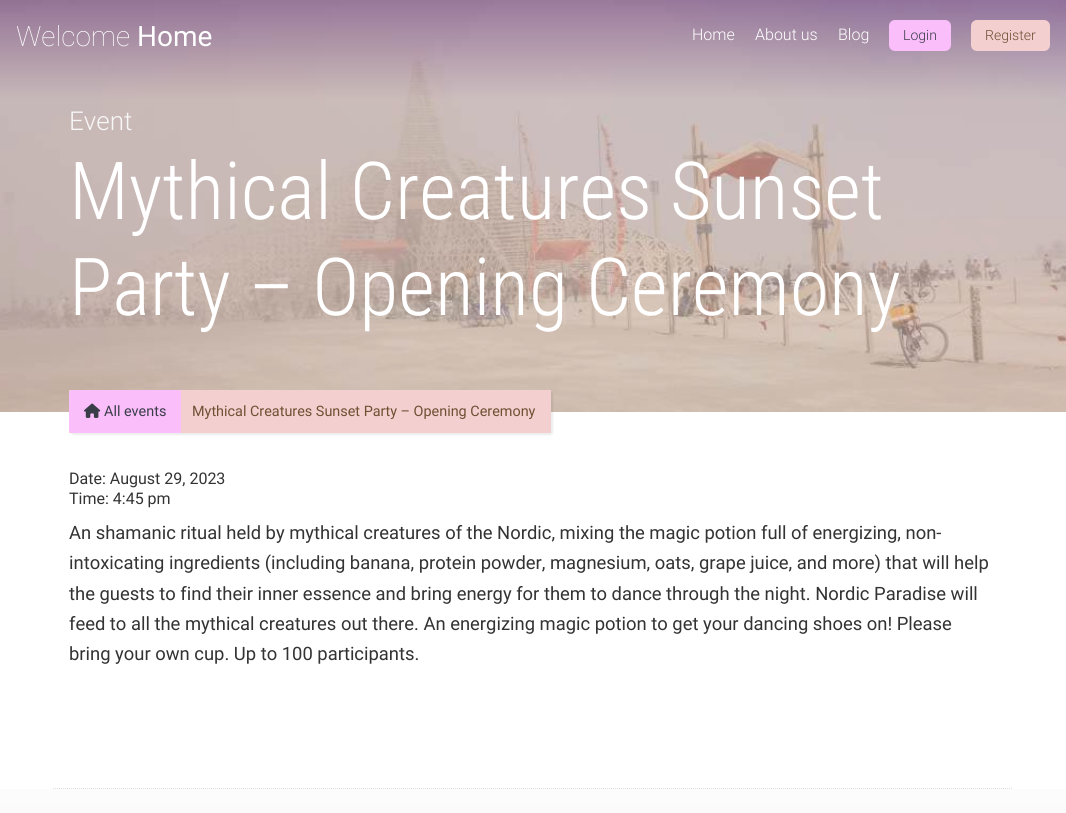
import math
import cairo


def round_path(ctx, x, y, w, h, r):
	ctx.new_sub_path()
	for i, (u, v) in enumerate([(x + w - r, y + h - r), (x + r, y + h - r), (x + r, y + r), (x + w - r, y + r)]):
		ctx.arc(u, v, r, i * math.pi / 2, (i + 1) * math.pi / 2)
	ctx.close_path()

def blur_box(ctx, x, y, w, h, r, blur, alpha):
	ctx.push_group_with_content(cairo.CONTENT_ALPHA)
	ctx.set_operator(cairo.OPERATOR_SOURCE)
	for i in range(15, -16, -2):
		e = blur * i / 6
		if min(w, h) + 2 * e > 0:
			ctx.set_source_rgba(0, 0, 0, alpha * math.erfc((i - 1) / 8.5) / 2)
			round_path(ctx, x - e, y - e, w + 2 * e, h + 2 * e, max(0, min(r + e + blur * .6, min(w, h) / 2 + e)))
			ctx.fill()
	ctx.mask(ctx.pop_group())

def paste(ctx, path, x, y, w, h):
	ctx.save()
	ctx.set_source_surface(cairo.ImageSurface.create_from_png(path), x, y)
	ctx.rectangle(x, y, w, h)
	ctx.fill()
	ctx.restore()

def draw(ctx):
	ctx.set_source_rgb(1, 1, 1)
	ctx.paint()
	gradient = cairo.LinearGradient(533, 0, 533, 412)
	gradient.add_color_stop_rgba(0, 0.467, 0.141, 0.486, 1)
	gradient.add_color_stop_rgba(0.24, 0.953, 0.812, 0.812, 1)
	gradient.add_color_stop_rgba(1, 0.953, 0.812, 0.812, 1)
	ctx.set_source(gradient)
	ctx.rectangle(0, 0, 1066, 412)
	ctx.fill()
	paste(ctx, 'media/1.png', 0, 0, 1066, 412)
	ctx.select_font_face('Roboto Thin')
	ctx.set_font_size(28)
	ctx.set_source_rgb(1, 1, 1)
	ctx.move_to(16, 46)
	ctx.show_text('Welcome')
	ctx.select_font_face('Roboto')
	ctx.move_to(137, 46)
	ctx.show_text('Home')
	ctx.select_font_face('Roboto Light')
	ctx.set_font_size(16)
	for x, y, s in [
		(692, 40, 'Home'),
		(755, 40, 'About us'),
		(838, 40, 'Blog'),
	]:
		ctx.move_to(x, y)
		ctx.show_text(s)
	ctx.set_source_rgb(0.98, 0.745, 0.984)
	round_path(ctx, 889, 20, 62, 31, 6)
	ctx.fill()
	ctx.set_font_size(14)
	ctx.set_source_rgb(0.224, 0.239, 0.282)
	ctx.move_to(903, 40)
	ctx.show_text('Login')
	ctx.set_source_rgb(0.953, 0.812, 0.812)
	round_path(ctx, 971, 20, 79, 31, 6)
	ctx.fill()
	ctx.set_source_rgb(0.431, 0.314, 0.2)
	ctx.move_to(985, 40)
	ctx.show_text('Register')
	ctx.set_font_size(26)
	ctx.set_source_rgb(0.965, 0.965, 0.965)
	ctx.move_to(69, 130)
	ctx.show_text('Event')
	ctx.select_font_face('Roboto Condensed Light')
	ctx.set_font_size(80)
	ctx.set_source_rgb(1, 1, 1)
	ctx.move_to(69, 219)
	ctx.show_text('Mythical Creatures Sunset')
	ctx.move_to(69, 315)
	ctx.show_text('Party – Opening Ceremony')
	ctx.set_source_rgb(0, 0, 0)
	blur_box(ctx, 71, 392, 482, 43, 3, 0.5, 0.07)
	ctx.set_source_rgb(0.953, 0.812, 0.812)
	ctx.rectangle(69, 390, 482, 43)
	ctx.fill()
	ctx.set_source_rgb(0.98, 0.745, 0.984)
	ctx.new_path()
	ctx.move_to(72, 390)
	ctx.line_to(181, 390)
	ctx.line_to(181, 433)
	ctx.line_to(72, 433)
	ctx.curve_to(70.5, 433, 69, 431.5, 69, 430)
	ctx.line_to(69, 393)
	ctx.curve_to(69, 391.5, 70.5, 390, 72, 390)
	ctx.close_path()
	ctx.fill()
	paste(ctx, 'media/2.png', 84, 403, 17, 15)
	ctx.select_font_face('Roboto')
	ctx.set_font_size(14.4)
	ctx.set_source_rgb(0.224, 0.239, 0.282)
	ctx.move_to(104, 416)
	ctx.show_text('All events')
	ctx.set_source_rgb(0.431, 0.314, 0.2)
	ctx.move_to(192, 416)
	ctx.show_text('Mythical Creatures Sunset Party – Opening Ceremony')
	ctx.set_font_size(16)
	ctx.set_source_rgb(0.2, 0.2, 0.2)
	ctx.move_to(69, 484)
	ctx.show_text('Date: August 29, 2023')
	ctx.move_to(69, 504)
	ctx.show_text('Time: 4:45 pm')
	ctx.set_font_size(18.4)
	for x, y, s in [
		(69, 539, 'An shamanic ritual held by mythical creatures of the Nordic, mixing the magic potion full of energizing, non-'),
		(69, 569, 'intoxicating ingredients (including banana, protein powder, magnesium, oats, grape juice, and more) that will help'),
		(69, 600, 'the guests to find their inner essence and bring energy for them to dance through the night. Nordic Paradise will'),
		(69, 630, 'feed to all the mythical creatures out there. An energizing magic potion to get your dancing shoes on! Please'),
		(69, 660, 'bring your own cup. Up to 100 participants.'),
	]:
		ctx.move_to(x, y)
		ctx.show_text(s)
	gradient = cairo.LinearGradient(533, 756, 533, 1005)
	gradient.add_color_stop_rgba(0, 1, 1, 1, 1)
	gradient.add_color_stop_rgba(1, 0.925, 0.925, 0.925, 1)
	ctx.set_source(gradient)
	ctx.rectangle(0, 789, 1066, 24)
	ctx.fill()
	ctx.new_path()
	ctx.move_to(53, 788.5)
	ctx.line_to(1013, 788.5)
	ctx.set_source_rgb(0.871, 0.871, 0.871)
	ctx.set_line_width(1)
	ctx.set_dash([1, 1])
	ctx.stroke()


surface = cairo.ImageSurface(cairo.FORMAT_RGB24, 1066, 813)
ctx = cairo.Context(surface)
options = cairo.FontOptions()
options.set_hint_metrics(cairo.HINT_METRICS_OFF)
options.set_hint_style(cairo.HINT_STYLE_NONE)
ctx.set_font_options(options)
ctx.set_miter_limit(4)
draw(ctx)
surface.write_to_png('image.png')
